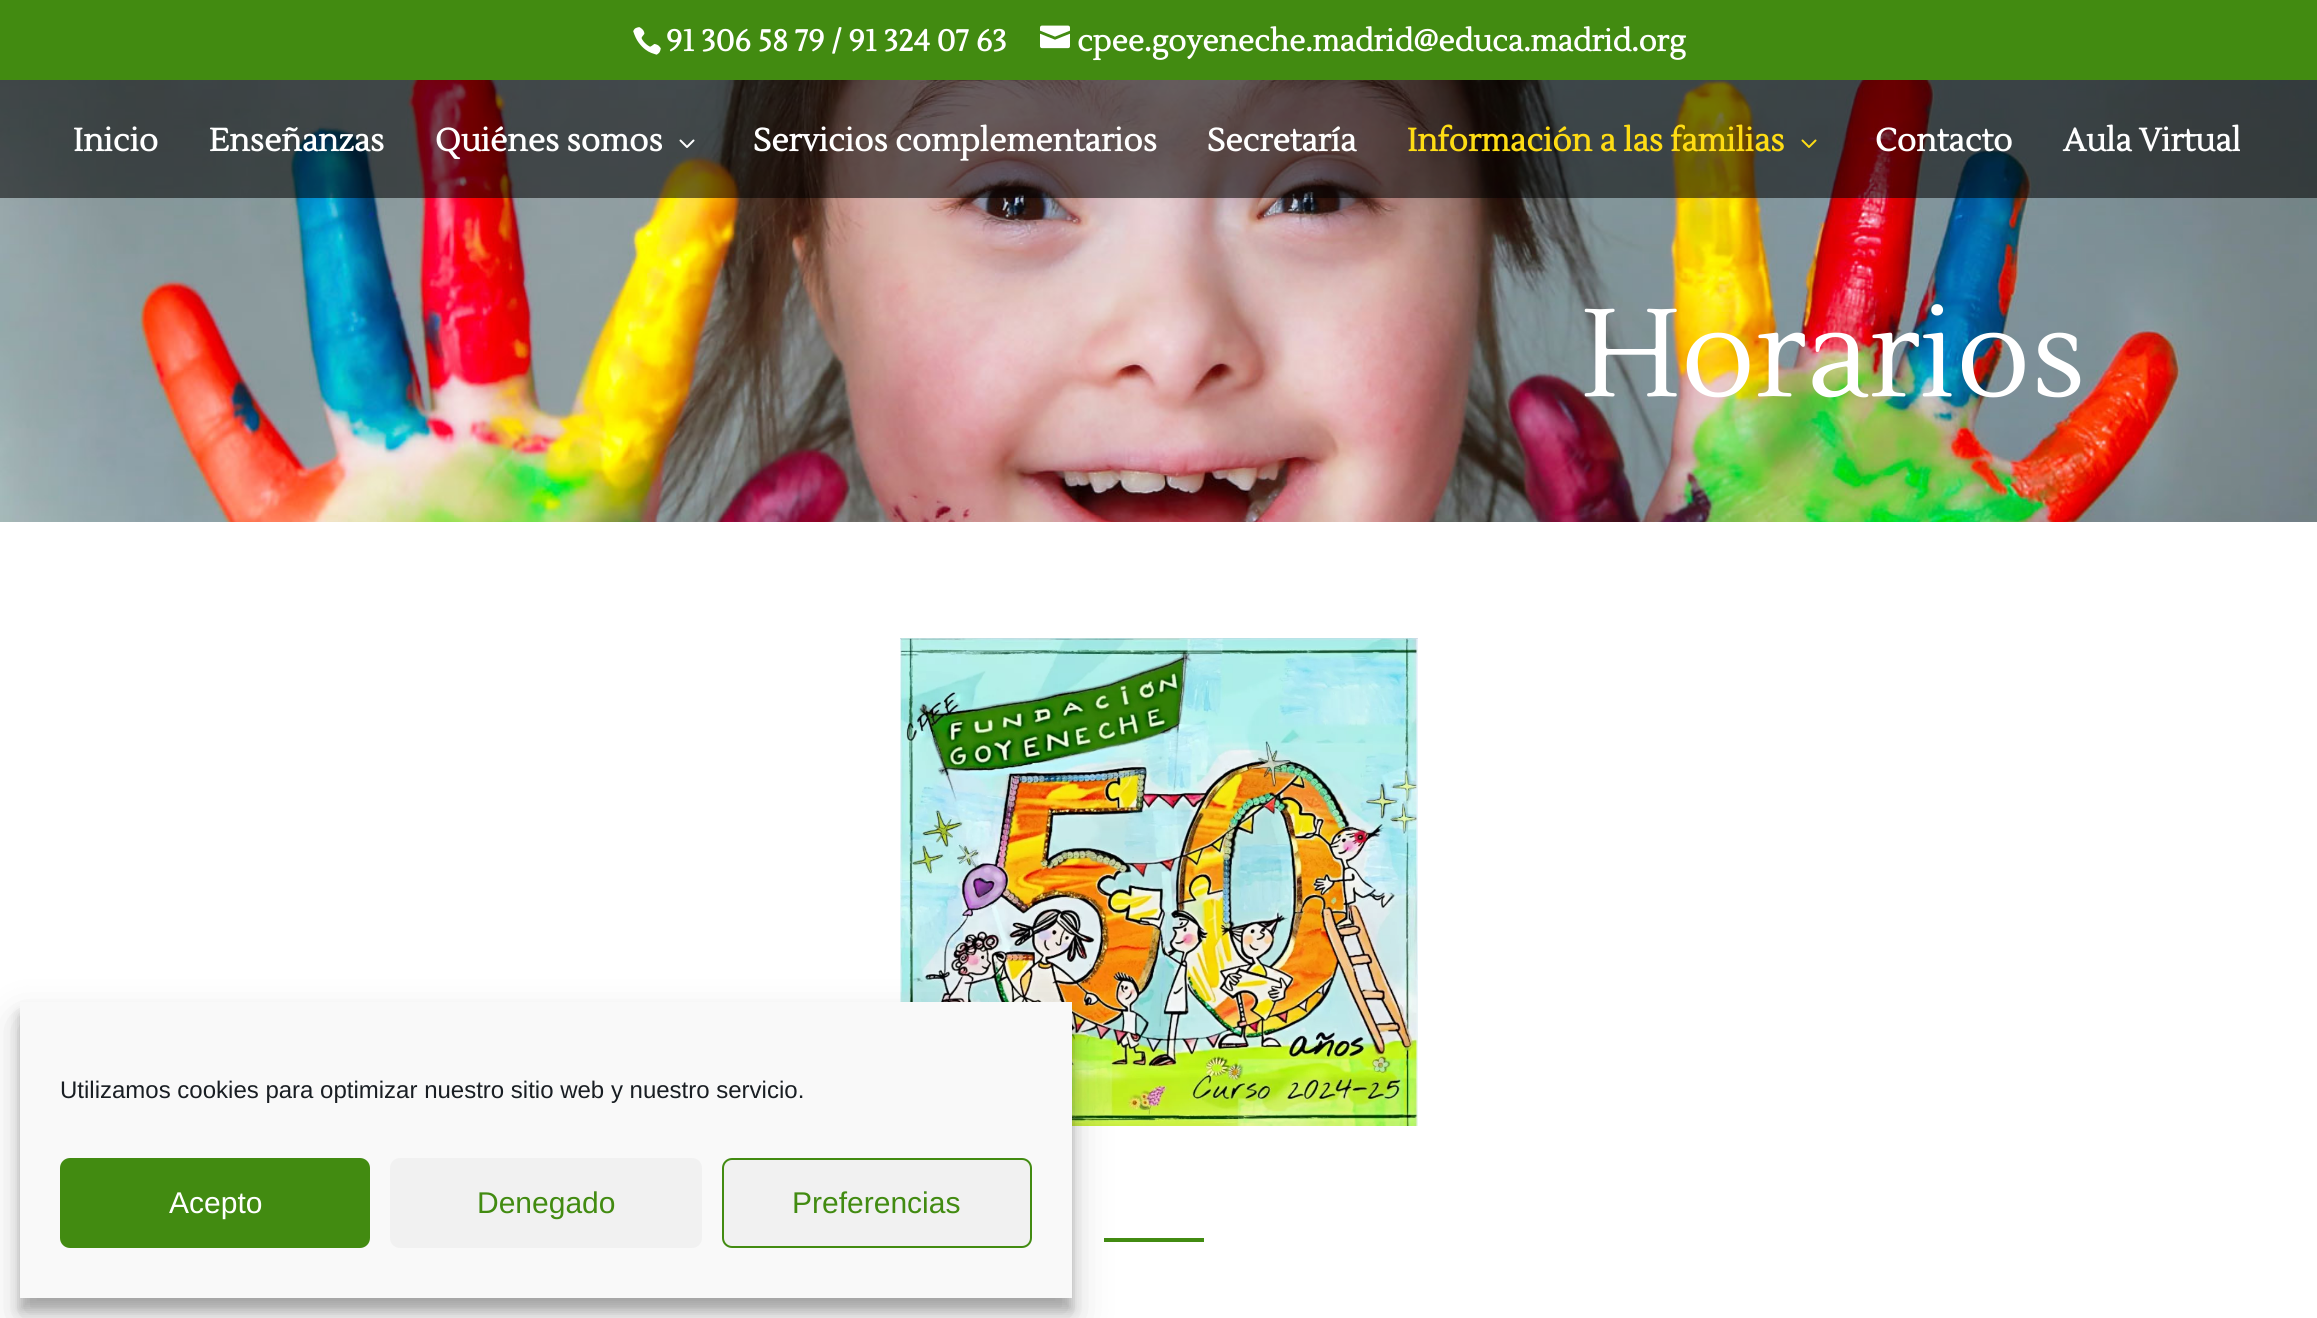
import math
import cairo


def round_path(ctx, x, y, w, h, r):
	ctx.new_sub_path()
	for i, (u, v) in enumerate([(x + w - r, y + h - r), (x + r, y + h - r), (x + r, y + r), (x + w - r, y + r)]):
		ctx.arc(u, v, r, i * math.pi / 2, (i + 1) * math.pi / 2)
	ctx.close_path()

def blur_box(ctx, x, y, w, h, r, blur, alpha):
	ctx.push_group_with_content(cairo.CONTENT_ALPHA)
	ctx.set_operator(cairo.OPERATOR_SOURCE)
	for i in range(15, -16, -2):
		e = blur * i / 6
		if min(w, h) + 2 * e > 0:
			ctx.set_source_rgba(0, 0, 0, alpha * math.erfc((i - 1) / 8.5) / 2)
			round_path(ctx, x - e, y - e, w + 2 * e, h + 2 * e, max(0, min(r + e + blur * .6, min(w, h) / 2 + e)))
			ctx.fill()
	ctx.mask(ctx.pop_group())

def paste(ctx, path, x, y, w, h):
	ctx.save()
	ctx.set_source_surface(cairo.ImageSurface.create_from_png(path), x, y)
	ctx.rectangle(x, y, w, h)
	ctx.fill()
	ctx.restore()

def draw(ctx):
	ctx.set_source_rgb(1, 1, 1)
	ctx.paint()
	ctx.set_source_rgb(0.259, 0.545, 0.067)
	ctx.rectangle(0, 0, 2317, 80)
	ctx.fill()
	paste(ctx, 'media/1.png', 633, 27, 28, 28)
	ctx.select_font_face('Lustria', cairo.FONT_SLANT_NORMAL, cairo.FONT_WEIGHT_BOLD)
	ctx.set_font_size(30)
	ctx.set_source_rgb(1, 1, 1)
	ctx.move_to(666, 51)
	ctx.show_text('91 306 58 79 / 91 324 07 63')
	paste(ctx, 'media/2.png', 1040, 25, 30, 24)
	ctx.move_to(1077, 51)
	ctx.show_text('cpee.goyeneche.madrid@educa.madrid.org')
	paste(ctx, 'media/5.png', 0, 80, 2317, 442)
	ctx.set_source_rgba(0, 0, 0, 0.55)
	ctx.rectangle(0, 80, 2317, 118)
	ctx.fill()
	ctx.set_font_size(32)
	ctx.set_source_rgb(1, 1, 1)
	for x, y, s in [
		(73, 151, 'Inicio'),
		(209, 151, 'Enseñanzas'),
		(435, 151, 'Quiénes somos'),
	]:
		ctx.move_to(x, y)
		ctx.show_text(s)
	paste(ctx, 'media/3.png', 679, 139, 16, 9)
	ctx.move_to(753, 151)
	ctx.show_text('Servicios complementarios')
	ctx.move_to(1207, 151)
	ctx.show_text('Secretaría')
	ctx.set_source_rgb(0.996, 0.863, 0.082)
	ctx.move_to(1407, 151)
	ctx.show_text('Información a las familias')
	paste(ctx, 'media/4.png', 1801, 139, 16, 9)
	ctx.set_source_rgb(1, 1, 1)
	ctx.move_to(1875, 151)
	ctx.show_text('Contacto')
	ctx.move_to(2063, 151)
	ctx.show_text('Aula Virtual')
	ctx.select_font_face('Lustria')
	ctx.set_font_size(124)
	ctx.move_to(1581, 396)
	ctx.show_text('Horarios')
	paste(ctx, 'media/6.png', 900, 638, 518, 488)
	ctx.set_source_rgb(0.259, 0.545, 0.067)
	ctx.rectangle(1104, 1238, 100, 4)
	ctx.fill()
	ctx.set_source_rgb(0, 0, 0)
	blur_box(ctx, 20, 1014, 1052, 296, 0, 6, 0.23)
	blur_box(ctx, 20, 1022, 1052, 296, 0, 20, 0.19)
	ctx.set_source_rgb(0.976, 0.976, 0.976)
	ctx.rectangle(20, 1002, 1052, 296)
	ctx.fill()
	ctx.select_font_face('Liberation Sans')
	ctx.set_font_size(24)
	ctx.set_source_rgb(0.098, 0.118, 0.137)
	ctx.move_to(60, 1098)
	ctx.show_text('Utilizamos cookies para optimizar nuestro sitio web y nuestro servicio.')
	ctx.set_source_rgb(0.259, 0.545, 0.067)
	round_path(ctx, 61, 1159, 308, 88, 9)
	ctx.fill_preserve()
	ctx.stroke()
	ctx.set_font_size(30)
	ctx.set_source_rgb(1, 1, 1)
	ctx.move_to(169, 1213)
	ctx.show_text('Acepto')
	ctx.set_source_rgb(0.945, 0.945, 0.945)
	round_path(ctx, 390, 1158, 312, 90, 10)
	ctx.fill()
	ctx.set_source_rgb(0.259, 0.545, 0.067)
	ctx.move_to(477, 1213)
	ctx.show_text('Denegado')
	ctx.set_source_rgb(0.945, 0.945, 0.945)
	round_path(ctx, 723, 1159, 308, 88, 9)
	ctx.fill_preserve()
	ctx.set_source_rgb(0.259, 0.545, 0.067)
	ctx.stroke()
	ctx.move_to(792, 1213)
	ctx.show_text('Preferencias')


surface = cairo.ImageSurface(cairo.FORMAT_RGB24, 2317, 1318)
ctx = cairo.Context(surface)
options = cairo.FontOptions()
options.set_hint_metrics(cairo.HINT_METRICS_OFF)
options.set_hint_style(cairo.HINT_STYLE_NONE)
ctx.set_font_options(options)
ctx.set_miter_limit(4)
draw(ctx)
surface.write_to_png('image.png')
